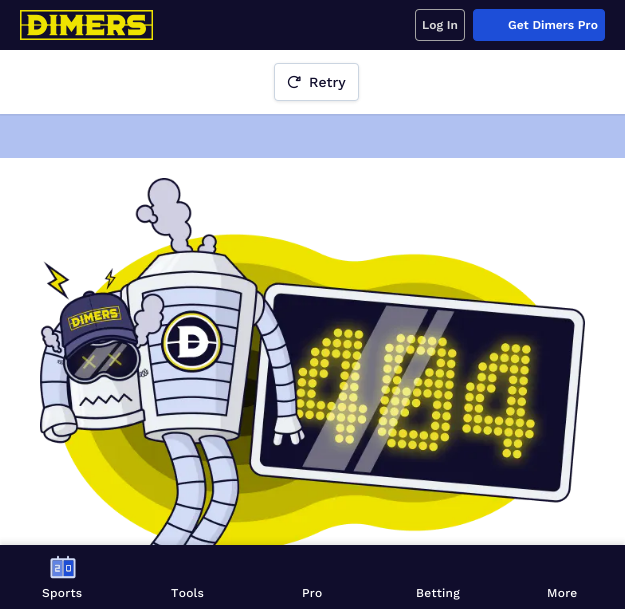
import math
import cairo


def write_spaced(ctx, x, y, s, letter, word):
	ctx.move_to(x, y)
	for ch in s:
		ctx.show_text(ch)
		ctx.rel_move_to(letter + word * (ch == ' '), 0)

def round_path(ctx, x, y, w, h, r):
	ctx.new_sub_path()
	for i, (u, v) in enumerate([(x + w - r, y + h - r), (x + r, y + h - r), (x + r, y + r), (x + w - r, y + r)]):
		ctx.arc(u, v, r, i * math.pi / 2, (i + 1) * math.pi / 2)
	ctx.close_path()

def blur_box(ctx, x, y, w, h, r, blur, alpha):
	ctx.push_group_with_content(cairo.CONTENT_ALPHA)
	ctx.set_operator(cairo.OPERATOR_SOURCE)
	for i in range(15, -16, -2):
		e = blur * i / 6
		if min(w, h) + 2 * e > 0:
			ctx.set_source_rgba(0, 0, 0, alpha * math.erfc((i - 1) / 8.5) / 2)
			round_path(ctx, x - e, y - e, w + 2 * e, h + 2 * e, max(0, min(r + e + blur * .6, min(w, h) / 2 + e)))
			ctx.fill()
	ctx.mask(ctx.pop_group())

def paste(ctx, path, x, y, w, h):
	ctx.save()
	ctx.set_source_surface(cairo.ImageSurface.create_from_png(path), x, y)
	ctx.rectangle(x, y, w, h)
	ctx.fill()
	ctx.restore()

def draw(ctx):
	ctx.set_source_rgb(1, 1, 1)
	ctx.paint()
	ctx.set_source_rgb(0.69, 0.757, 0.945)
	ctx.rectangle(0, 114, 625, 44)
	ctx.fill()
	ctx.save()
	ctx.rectangle(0, 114, 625, 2)
	ctx.clip()
	ctx.set_source_rgb(0, 0, 0)
	blur_box(ctx, 0, 51, 625, 64, 0, 1.5, 0.1)
	ctx.restore()
	ctx.set_source_rgb(0.063, 0.051, 0.173)
	ctx.rectangle(0, 0, 625, 50)
	ctx.fill()
	paste(ctx, 'media/1.png', 20, 10, 133, 30)
	round_path(ctx, 415.5, 9.5, 49, 31, 3.5)
	ctx.set_source_rgb(0.639, 0.639, 0.639)
	ctx.set_line_width(1)
	ctx.stroke()
	ctx.select_font_face('Work Sans SemiBold')
	ctx.set_font_size(12)
	ctx.set_source_rgb(0.847, 0.847, 0.847)
	ctx.move_to(422, 29)
	ctx.show_text('Log In')
	ctx.set_source_rgb(0.114, 0.306, 0.847)
	round_path(ctx, 473.5, 9.5, 131, 31, 3.5)
	ctx.fill_preserve()
	ctx.stroke()
	ctx.set_source_rgb(1, 1, 1)
	ctx.move_to(508, 29)
	ctx.show_text('Get Dimers Pro')
	paste(ctx, 'media/4.png', 40, 178, 545, 367)
	ctx.set_source_rgb(0, 0, 0)
	blur_box(ctx, 1, 542, 623, 62, 0, 3, 0.1)
	ctx.set_source_rgb(0.063, 0.051, 0.173)
	ctx.rectangle(0, 545, 625, 64)
	ctx.fill()
	paste(ctx, 'media/2.png', 50, 555, 26, 24)
	ctx.select_font_face('Work Sans Medium')
	ctx.set_source_rgb(1, 1, 1)
	for x, y, s in [
		(42, 597, 'Sports'),
		(171, 597, 'Tools'),
		(302, 597, 'Pro'),
		(416, 597, 'Betting'),
		(547, 597, 'More'),
	]:
		write_spaced(ctx, x, y, s, 0.25, 0)
	ctx.save()
	ctx.set_fill_rule(cairo.FILL_RULE_EVEN_ODD)
	ctx.new_path()
	ctx.move_to(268, 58)
	ctx.line_to(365, 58)
	ctx.line_to(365, 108)
	ctx.line_to(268, 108)
	ctx.close_path()
	ctx.move_to(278, 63)
	ctx.line_to(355, 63)
	ctx.curve_to(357, 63, 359, 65, 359, 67)
	ctx.line_to(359, 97)
	ctx.curve_to(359, 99, 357, 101, 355, 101)
	ctx.line_to(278, 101)
	ctx.curve_to(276, 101, 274, 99, 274, 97)
	ctx.line_to(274, 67)
	ctx.curve_to(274, 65, 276, 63, 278, 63)
	ctx.close_path()
	ctx.clip()
	ctx.set_source_rgb(0, 0, 0)
	blur_box(ctx, 274, 64, 85, 38, 4, 1.5, 0.1)
	ctx.restore()
	round_path(ctx, 274.5, 63.5, 84, 37, 3.5)
	ctx.set_source_rgb(0.796, 0.835, 0.882)
	ctx.stroke()
	paste(ctx, 'media/3.png', 287, 75, 14, 14)
	ctx.set_font_size(14)
	ctx.set_source_rgb(0.063, 0.051, 0.173)
	ctx.move_to(309, 87)
	ctx.show_text('Retry')


surface = cairo.ImageSurface(cairo.FORMAT_RGB24, 625, 609)
ctx = cairo.Context(surface)
options = cairo.FontOptions()
options.set_hint_metrics(cairo.HINT_METRICS_OFF)
options.set_hint_style(cairo.HINT_STYLE_NONE)
ctx.set_font_options(options)
ctx.set_miter_limit(4)
draw(ctx)
surface.write_to_png('image.png')
